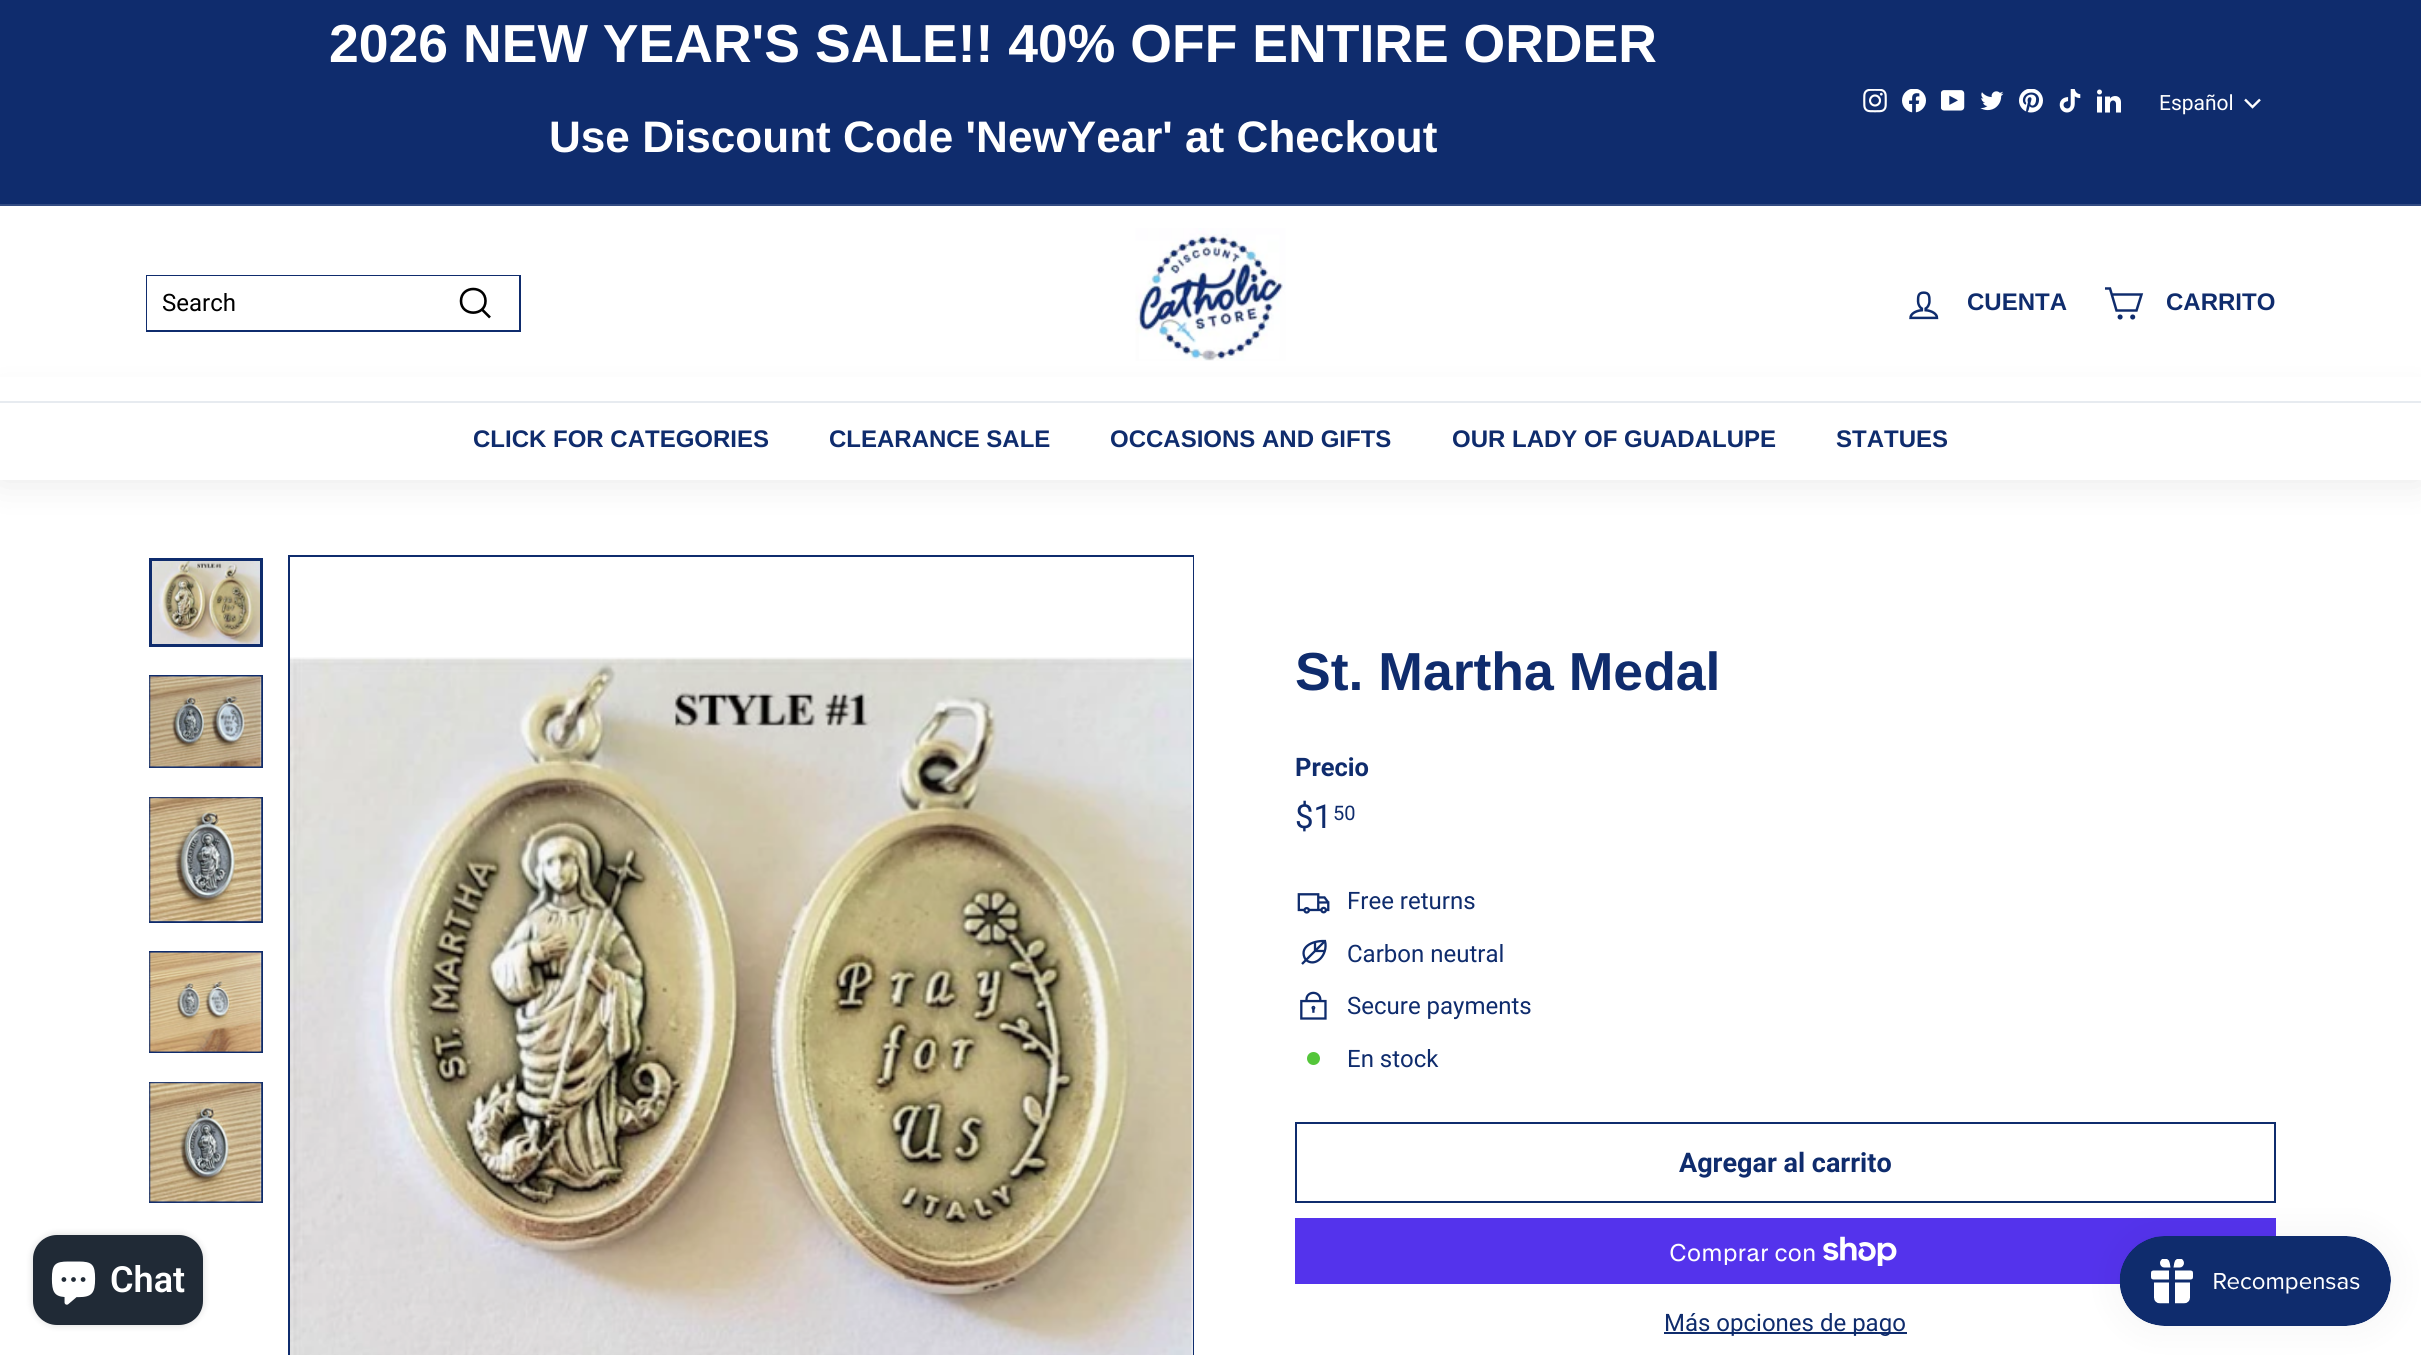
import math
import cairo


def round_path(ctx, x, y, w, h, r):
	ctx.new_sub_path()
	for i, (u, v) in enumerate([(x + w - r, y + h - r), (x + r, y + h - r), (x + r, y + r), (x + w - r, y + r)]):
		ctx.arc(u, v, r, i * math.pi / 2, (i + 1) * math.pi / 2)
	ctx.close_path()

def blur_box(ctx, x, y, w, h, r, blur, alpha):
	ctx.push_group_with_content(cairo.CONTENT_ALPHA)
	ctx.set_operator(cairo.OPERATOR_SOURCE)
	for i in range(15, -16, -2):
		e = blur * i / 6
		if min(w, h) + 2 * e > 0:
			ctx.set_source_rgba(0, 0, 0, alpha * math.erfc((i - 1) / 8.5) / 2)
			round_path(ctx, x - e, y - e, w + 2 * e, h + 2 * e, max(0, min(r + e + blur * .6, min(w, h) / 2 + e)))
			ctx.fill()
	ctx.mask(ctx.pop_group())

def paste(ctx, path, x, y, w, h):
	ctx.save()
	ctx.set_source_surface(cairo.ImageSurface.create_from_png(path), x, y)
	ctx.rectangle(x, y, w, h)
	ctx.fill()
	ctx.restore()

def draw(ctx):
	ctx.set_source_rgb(1, 1, 1)
	ctx.paint()
	ctx.set_source_rgb(0.059, 0.173, 0.427)
	ctx.rectangle(0, 0, 2421, 204)
	ctx.fill()
	ctx.select_font_face('Liberation Sans', cairo.FONT_SLANT_NORMAL, cairo.FONT_WEIGHT_BOLD)
	ctx.set_font_size(53.55)
	ctx.set_source_rgb(1, 1, 1)
	ctx.move_to(329, 62)
	ctx.show_text('2026 NEW YEAR\'S SALE!! 40% OFF ENTIRE ORDER')
	ctx.set_font_size(44.1)
	ctx.move_to(549, 152)
	ctx.show_text('Use Discount Code \'NewYear\' at Checkout')
	paste(ctx, 'media/1.png', 1863, 89, 24, 24)
	paste(ctx, 'media/2.png', 1902, 89, 24, 24)
	paste(ctx, 'media/3.png', 1941, 90, 24, 21)
	paste(ctx, 'media/4.png', 1980, 91, 24, 20)
	paste(ctx, 'media/5.png', 2019, 89, 24, 24)
	paste(ctx, 'media/6.png', 2059, 89, 22, 24)
	paste(ctx, 'media/7.png', 2097, 89, 24, 24)
	ctx.select_font_face('Roboto')
	ctx.set_font_size(21)
	ctx.move_to(2159, 110)
	ctx.show_text('Español')
	ctx.new_path()
	ctx.move_to(2245, 99.5)
	ctx.line_to(2252.5, 107)
	ctx.line_to(2260, 99.5)
	ctx.set_line_width(2.4)
	ctx.stroke()
	ctx.set_source_rgb(0.2, 0.298, 0.514)
	ctx.rectangle(0, 204, 2421, 2)
	ctx.fill()
	ctx.set_source_rgb(0, 0, 0)
	blur_box(ctx, 0, 401, 2421, 79, 0, 19, 0.1)
	ctx.set_source_rgb(1, 1, 1)
	ctx.rectangle(0, 377, 2421, 24)
	ctx.fill()
	ctx.rectangle(147, 276, 373, 55)
	ctx.set_source_rgb(0.059, 0.173, 0.427)
	ctx.set_line_width(2)
	ctx.stroke()
	ctx.set_source_rgb(1, 1, 1)
	ctx.rectangle(147, 276, 372, 54)
	ctx.fill()
	ctx.set_font_size(24)
	ctx.set_source_rgb(0, 0, 0)
	ctx.move_to(162, 311)
	ctx.show_text('Search')
	ctx.new_path()
	ctx.move_to(485.5, 301)
	ctx.curve_to(485.5, 316.5, 461, 316.5, 461, 301)
	ctx.curve_to(461, 285, 485.5, 285, 485.5, 301)
	ctx.close_path()
	ctx.move_to(490, 317.5)
	ctx.line_to(482, 309.5)
	ctx.set_line_width(2.6)
	ctx.stroke()
	paste(ctx, 'media/8.png', 1135, 228, 151, 133)
	paste(ctx, 'media/9.png', 1909, 291, 30, 29)
	ctx.select_font_face('Liberation Sans', cairo.FONT_SLANT_NORMAL, cairo.FONT_WEIGHT_BOLD)
	ctx.set_source_rgb(0.059, 0.173, 0.427)
	ctx.move_to(1967, 310)
	ctx.show_text('CUENTA')
	ctx.new_path()
	ctx.move_to(2112, 294.5)
	ctx.line_to(2141.5, 294.5)
	ctx.line_to(2136.5, 310.5)
	ctx.line_to(2116.5, 310.5)
	ctx.line_to(2110, 288.5)
	ctx.line_to(2105, 288.5)
	ctx.set_line_width(2.5)
	ctx.stroke()
	ctx.arc(2120.1, 317, 1.3, 0, 2 * math.pi)
	ctx.stroke()
	ctx.arc(2132.7, 317, 1.3, 0, 2 * math.pi)
	ctx.stroke()
	ctx.move_to(2166, 310)
	ctx.show_text('CARRITO')
	ctx.set_source_rgb(1, 1, 1)
	ctx.rectangle(0, 403, 2421, 77)
	ctx.fill()
	ctx.set_source_rgb(0.906, 0.918, 0.941)
	ctx.rectangle(0, 401, 2421, 2)
	ctx.fill()
	ctx.set_source_rgb(0.059, 0.173, 0.427)
	for x, y, s in [
		(473, 447, 'CLICK FOR CATEGORIES'),
		(829, 447, 'CLEARANCE SALE'),
		(1110, 447, 'OCCASIONS AND GIFTS'),
		(1452, 447, 'OUR LADY OF GUADALUPE'),
		(1836, 447, 'STATUES'),
	]:
		ctx.move_to(x, y)
		ctx.show_text(s)
	paste(ctx, 'media/10.png', 152, 561, 108, 83)
	ctx.rectangle(150.5, 559.5, 111, 86)
	ctx.set_line_width(3)
	ctx.stroke()
	ctx.rectangle(150, 676, 112, 91)
	ctx.set_line_width(2)
	ctx.stroke()
	paste(ctx, 'media/11.png', 149, 676, 113, 92)
	ctx.rectangle(150, 798, 112, 124)
	ctx.stroke()
	paste(ctx, 'media/12.png', 149, 797, 113, 125)
	ctx.rectangle(150, 952, 112, 100)
	ctx.stroke()
	paste(ctx, 'media/13.png', 149, 952, 113, 100)
	ctx.rectangle(150, 1083, 112, 119)
	ctx.stroke()
	paste(ctx, 'media/14.png', 149, 1082, 113, 121)
	ctx.rectangle(289, 556, 904, 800)
	ctx.stroke()
	ctx.set_source_rgb(1, 1, 1)
	ctx.rectangle(1192, 557, 1, 798)
	ctx.fill()
	paste(ctx, 'media/15.png', 290, 657, 903, 698)
	ctx.set_font_size(53.55)
	ctx.set_source_rgb(0.059, 0.173, 0.427)
	ctx.move_to(1295, 690)
	ctx.show_text('St. Martha Medal')
	ctx.select_font_face('Roboto', cairo.FONT_SLANT_NORMAL, cairo.FONT_WEIGHT_BOLD)
	ctx.set_font_size(25.5)
	ctx.move_to(1295, 776)
	ctx.show_text('Precio')
	ctx.select_font_face('Roboto')
	ctx.set_font_size(33)
	ctx.move_to(1295, 828)
	ctx.show_text('$1')
	ctx.set_font_size(20)
	ctx.move_to(1333, 820)
	ctx.show_text('50')
	paste(ctx, 'media/16.png', 1297, 893, 33, 21)
	ctx.set_font_size(24)
	ctx.move_to(1347, 909)
	ctx.show_text('Free returns')
	ctx.new_path()
	ctx.move_to(1324.5, 941.5)
	ctx.line_to(1302, 964)
	ctx.move_to(1315, 942)
	ctx.line_to(1315, 951)
	ctx.line_to(1324.5, 951)
	ctx.move_to(1325, 941)
	ctx.curve_to(1328.5, 955, 1315, 968.5, 1305.5, 959.5)
	ctx.curve_to(1298.5, 947.5, 1311.5, 940.5, 1325, 941)
	ctx.close_path()
	ctx.set_line_width(2.3)
	ctx.stroke()
	ctx.move_to(1347, 962)
	ctx.show_text('Carbon neutral')
	paste(ctx, 'media/17.png', 1300, 991, 27, 29)
	ctx.move_to(1347, 1014)
	ctx.show_text('Secure payments')
	ctx.set_source_rgb(0.329, 0.776, 0.227)
	ctx.new_path()
	ctx.arc(1313.5, 1058.5, 6.5, 0, 2 * math.pi)
	ctx.fill()
	ctx.set_source_rgb(0.059, 0.173, 0.427)
	ctx.move_to(1347, 1067)
	ctx.show_text('En stock')
	ctx.rectangle(1296, 1123, 979, 79)
	ctx.set_line_width(2)
	ctx.stroke()
	ctx.select_font_face('Roboto', cairo.FONT_SLANT_NORMAL, cairo.FONT_WEIGHT_BOLD)
	ctx.set_font_size(27)
	ctx.move_to(1679, 1172)
	ctx.show_text('Agregar al carrito')
	ctx.set_source_rgb(0.329, 0.2, 0.922)
	ctx.rectangle(1295, 1218, 981, 66)
	ctx.fill()
	ctx.select_font_face('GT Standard')
	ctx.set_font_size(24)
	ctx.set_source_rgb(1, 1, 1)
	ctx.move_to(1669, 1261)
	ctx.show_text('Comprar con')
	paste(ctx, 'media/18.png', 1823, 1236, 74, 30)
	ctx.set_source_rgb(0.059, 0.173, 0.427)
	ctx.rectangle(1664, 1332, 243, 2)
	ctx.fill()
	ctx.select_font_face('Roboto')
	ctx.move_to(1664, 1331)
	ctx.show_text('Más opciones de pago')
	ctx.set_source_rgb(0, 0, 0)
	blur_box(ctx, 33, 1235, 170, 90, 24, 4, 0.15)
	ctx.set_source_rgb(0.125, 0.165, 0.212)
	round_path(ctx, 33, 1235, 170, 90, 24)
	ctx.fill()
	paste(ctx, 'media/19.png', 51, 1261, 45, 44)
	ctx.select_font_face('Roboto SemiBold')
	ctx.set_font_size(36)
	ctx.set_source_rgb(1, 1, 1)
	ctx.move_to(110, 1292)
	ctx.show_text('Chat')
	ctx.set_source_rgb(0, 0, 0)
	blur_box(ctx, 2120, 1236, 271, 90, 45, 19, 0.05)
	paste(ctx, 'media/20.png', 2119, 1236, 272, 90)


surface = cairo.ImageSurface(cairo.FORMAT_RGB24, 2421, 1355)
ctx = cairo.Context(surface)
options = cairo.FontOptions()
options.set_hint_metrics(cairo.HINT_METRICS_OFF)
options.set_hint_style(cairo.HINT_STYLE_NONE)
ctx.set_font_options(options)
ctx.set_miter_limit(4)
draw(ctx)
surface.write_to_png('image.png')
